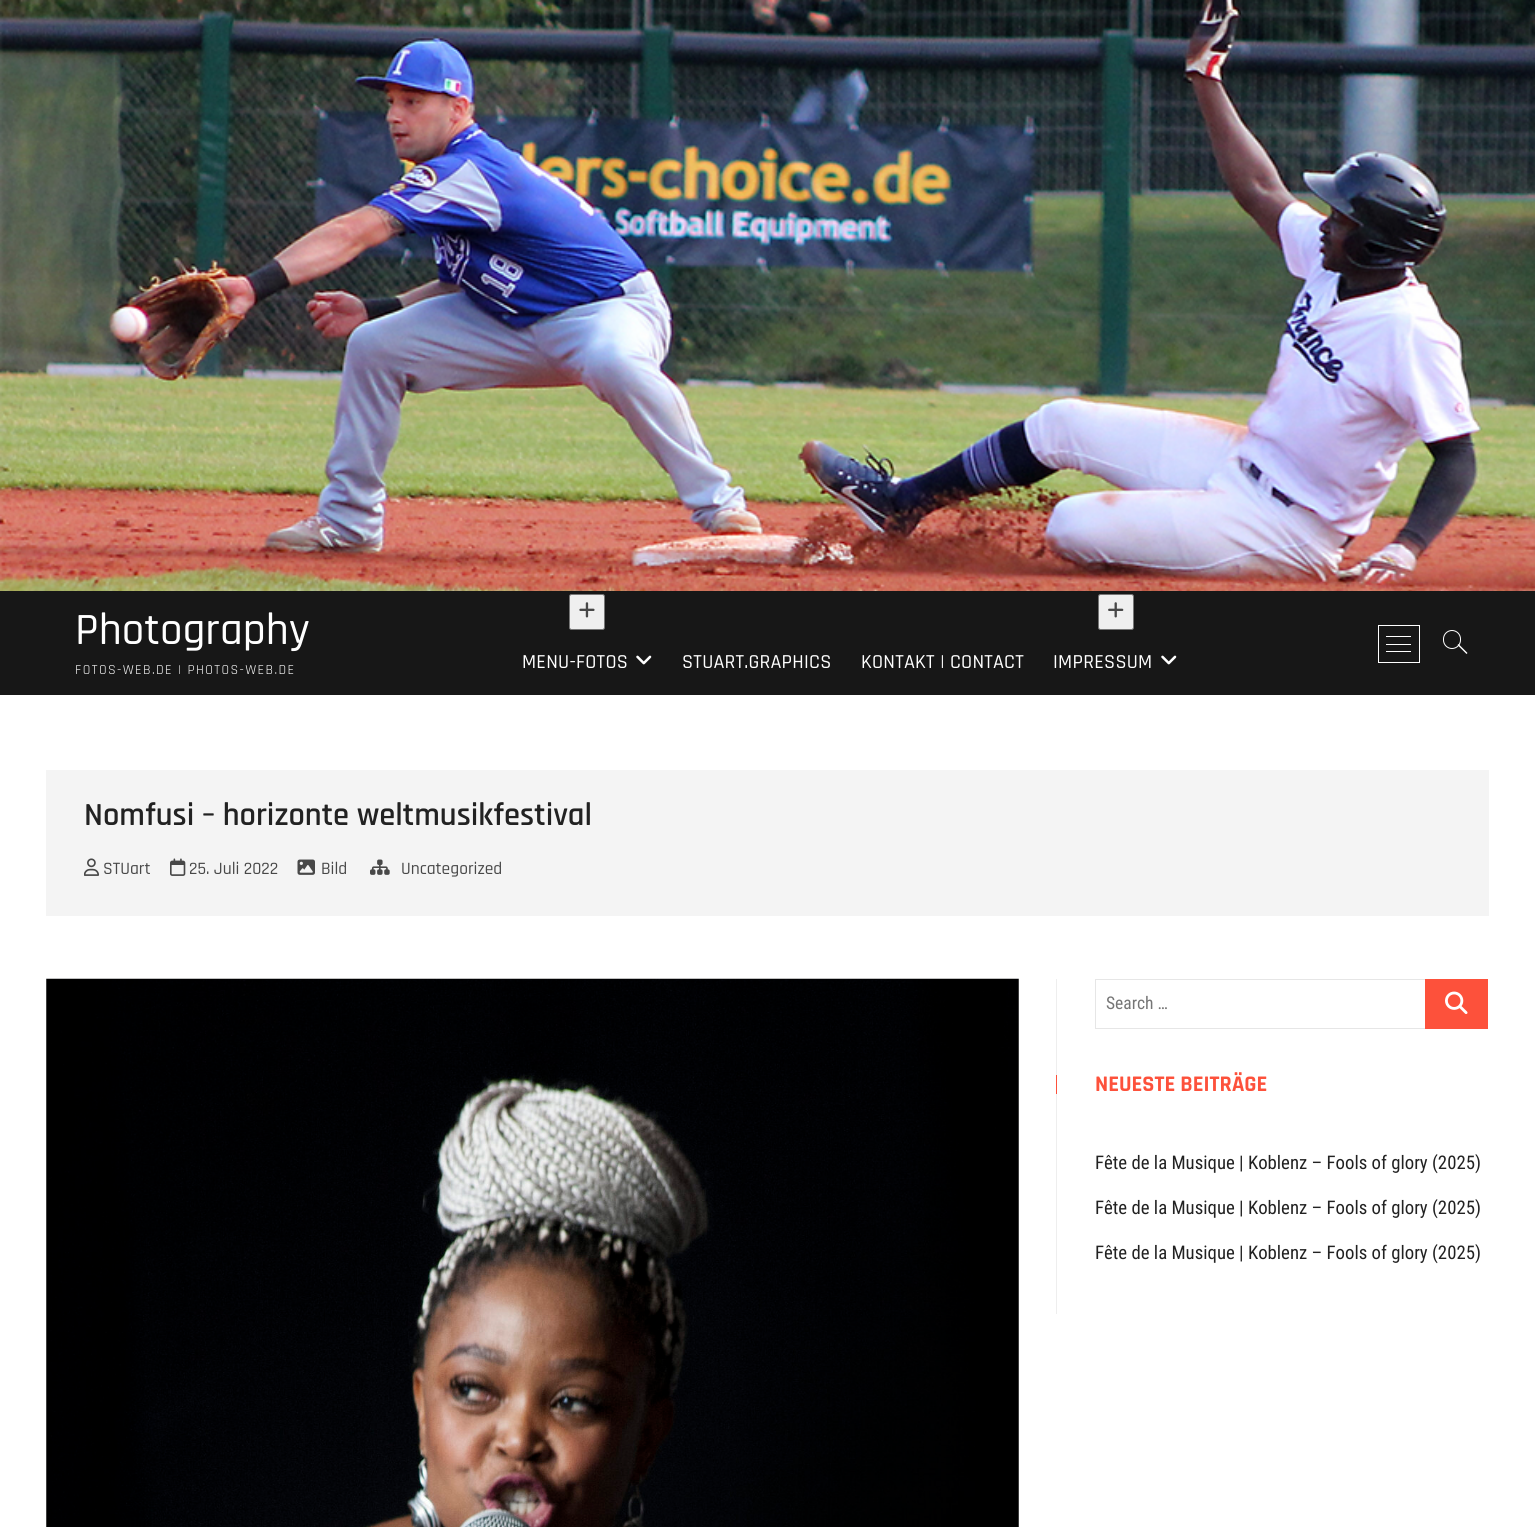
import math
import cairo


def write_spaced(ctx, x, y, s, letter, word):
	ctx.move_to(x, y)
	for ch in s:
		ctx.show_text(ch)
		ctx.rel_move_to(letter + word * (ch == ' '), 0)

def round_path(ctx, x, y, w, h, r):
	ctx.new_sub_path()
	for i, (u, v) in enumerate([(x + w - r, y + h - r), (x + r, y + h - r), (x + r, y + r), (x + w - r, y + r)]):
		ctx.arc(u, v, r, i * math.pi / 2, (i + 1) * math.pi / 2)
	ctx.close_path()

def paste(ctx, path, x, y, w, h):
	ctx.save()
	ctx.set_source_surface(cairo.ImageSurface.create_from_png(path), x, y)
	ctx.rectangle(x, y, w, h)
	ctx.fill()
	ctx.restore()

def draw(ctx):
	ctx.set_source_rgb(1, 1, 1)
	ctx.paint()
	paste(ctx, 'media/1.png', 0, 0, 1535, 591)
	ctx.set_source_rgb(0.09, 0.09, 0.09)
	ctx.rectangle(0, 591, 1535, 104)
	ctx.fill()
	ctx.select_font_face('Rajdhani Medium')
	ctx.set_font_size(45)
	ctx.set_source_rgb(1, 1, 1)
	ctx.move_to(75, 644)
	ctx.show_text('Photography')
	ctx.select_font_face('Rajdhani')
	ctx.set_font_size(13.75)
	write_spaced(ctx, 75, 674, 'FOTOS-WEB.DE | PHOTOS-WEB.DE', 1.4, 0)
	ctx.set_source_rgb(0.937, 0.937, 0.937)
	round_path(ctx, 569.5, 594.5, 35, 35, 2)
	ctx.fill_preserve()
	ctx.set_source_rgb(0.463, 0.463, 0.463)
	ctx.set_line_width(1)
	ctx.stroke()
	paste(ctx, 'media/2.png', 579, 602, 16, 16)
	ctx.select_font_face('Rajdhani Medium')
	ctx.set_font_size(20)
	ctx.set_source_rgb(1, 1, 1)
	write_spaced(ctx, 522, 668, 'MENU-FOTOS', 0.25, 0)
	paste(ctx, 'media/3.png', 636, 655, 16, 10)
	write_spaced(ctx, 682, 668, 'STUART.GRAPHICS', 0.25, 0)
	write_spaced(ctx, 861, 668, 'KONTAKT | CONTACT', 0.25, 0)
	ctx.set_source_rgb(0.937, 0.937, 0.937)
	round_path(ctx, 1098.5, 594.5, 35, 35, 2)
	ctx.fill_preserve()
	ctx.set_source_rgb(0.463, 0.463, 0.463)
	ctx.stroke()
	paste(ctx, 'media/4.png', 1108, 602, 16, 16)
	ctx.set_source_rgb(1, 1, 1)
	write_spaced(ctx, 1053, 668, 'IMPRESSUM', 0.25, 0)
	paste(ctx, 'media/3.png', 1161, 655, 16, 10)
	ctx.rectangle(1378.5, 625.5, 41, 37)
	ctx.stroke()
	ctx.rectangle(1386, 644, 25, 1)
	ctx.rectangle(1386, 636, 25, 1)
	ctx.rectangle(1386, 651, 25, 1)
	ctx.fill()
	round_path(ctx, 1443.5, 630.5, 17, 18, 8.5)
	ctx.stroke()
	ctx.new_path()
	ctx.move_to(1457.5, 645)
	ctx.line_to(1458.5, 644)
	ctx.line_to(1467.5, 653)
	ctx.line_to(1466.5, 654)
	ctx.close_path()
	ctx.fill()
	ctx.set_source_rgb(0.957, 0.957, 0.957)
	ctx.rectangle(46, 770, 1443, 146)
	ctx.fill()
	ctx.select_font_face('Rajdhani SemiBold')
	ctx.set_font_size(32.5)
	ctx.set_source_rgb(0.133, 0.133, 0.133)
	ctx.move_to(84, 825)
	ctx.show_text('Nomfusi – horizonte weltmusikfestival')
	paste(ctx, 'media/5.png', 84, 858, 16, 18)
	ctx.select_font_face('Rajdhani Medium')
	ctx.set_font_size(17.5)
	ctx.set_source_rgb(0.282, 0.282, 0.282)
	ctx.move_to(103, 874)
	ctx.show_text('STUart')
	paste(ctx, 'media/6.png', 170, 858, 16, 18)
	ctx.move_to(189, 874)
	ctx.show_text('25. Juli 2022')
	paste(ctx, 'media/7.png', 297, 859, 18, 16)
	ctx.move_to(321, 874)
	ctx.show_text('Bild')
	paste(ctx, 'media/8.png', 370, 859, 20, 16)
	ctx.move_to(401, 874)
	ctx.show_text('Uncategorized')
	paste(ctx, 'media/9.png', 46, 978, 973, 549)
	ctx.set_source_rgb(0.933, 0.933, 0.933)
	ctx.rectangle(1056, 979, 1, 335)
	ctx.fill()
	ctx.rectangle(1095.5, 979.5, 330, 49)
	ctx.set_source_rgb(0.902, 0.902, 0.902)
	ctx.stroke()
	ctx.select_font_face('Roboto Condensed')
	ctx.set_source_rgb(0.459, 0.459, 0.459)
	ctx.move_to(1106, 1009)
	ctx.show_text('Search …')
	ctx.set_source_rgb(0.992, 0.318, 0.231)
	ctx.rectangle(1425, 979, 63, 50)
	ctx.fill()
	paste(ctx, 'media/10.png', 1445, 991, 23, 23)
	ctx.rectangle(1056, 1075, 1, 19)
	ctx.fill()
	ctx.select_font_face('Rajdhani', cairo.FONT_SLANT_NORMAL, cairo.FONT_WEIGHT_BOLD)
	ctx.set_font_size(22.5)
	ctx.move_to(1095, 1091)
	ctx.show_text('NEUESTE BEITRÄGE')
	ctx.select_font_face('Roboto Condensed')
	ctx.set_font_size(18.75)
	ctx.set_source_rgb(0.133, 0.133, 0.133)
	for x, y, s in [
		(1095, 1169, 'Fête de la Musique | Koblenz – Fools of glory (2025)'),
		(1095, 1214, 'Fête de la Musique | Koblenz – Fools of glory (2025)'),
		(1095, 1259, 'Fête de la Musique | Koblenz – Fools of glory (2025)'),
	]:
		ctx.move_to(x, y)
		ctx.show_text(s)


surface = cairo.ImageSurface(cairo.FORMAT_RGB24, 1535, 1527)
ctx = cairo.Context(surface)
options = cairo.FontOptions()
options.set_hint_metrics(cairo.HINT_METRICS_OFF)
options.set_hint_style(cairo.HINT_STYLE_NONE)
ctx.set_font_options(options)
ctx.set_miter_limit(4)
draw(ctx)
surface.write_to_png('image.png')
